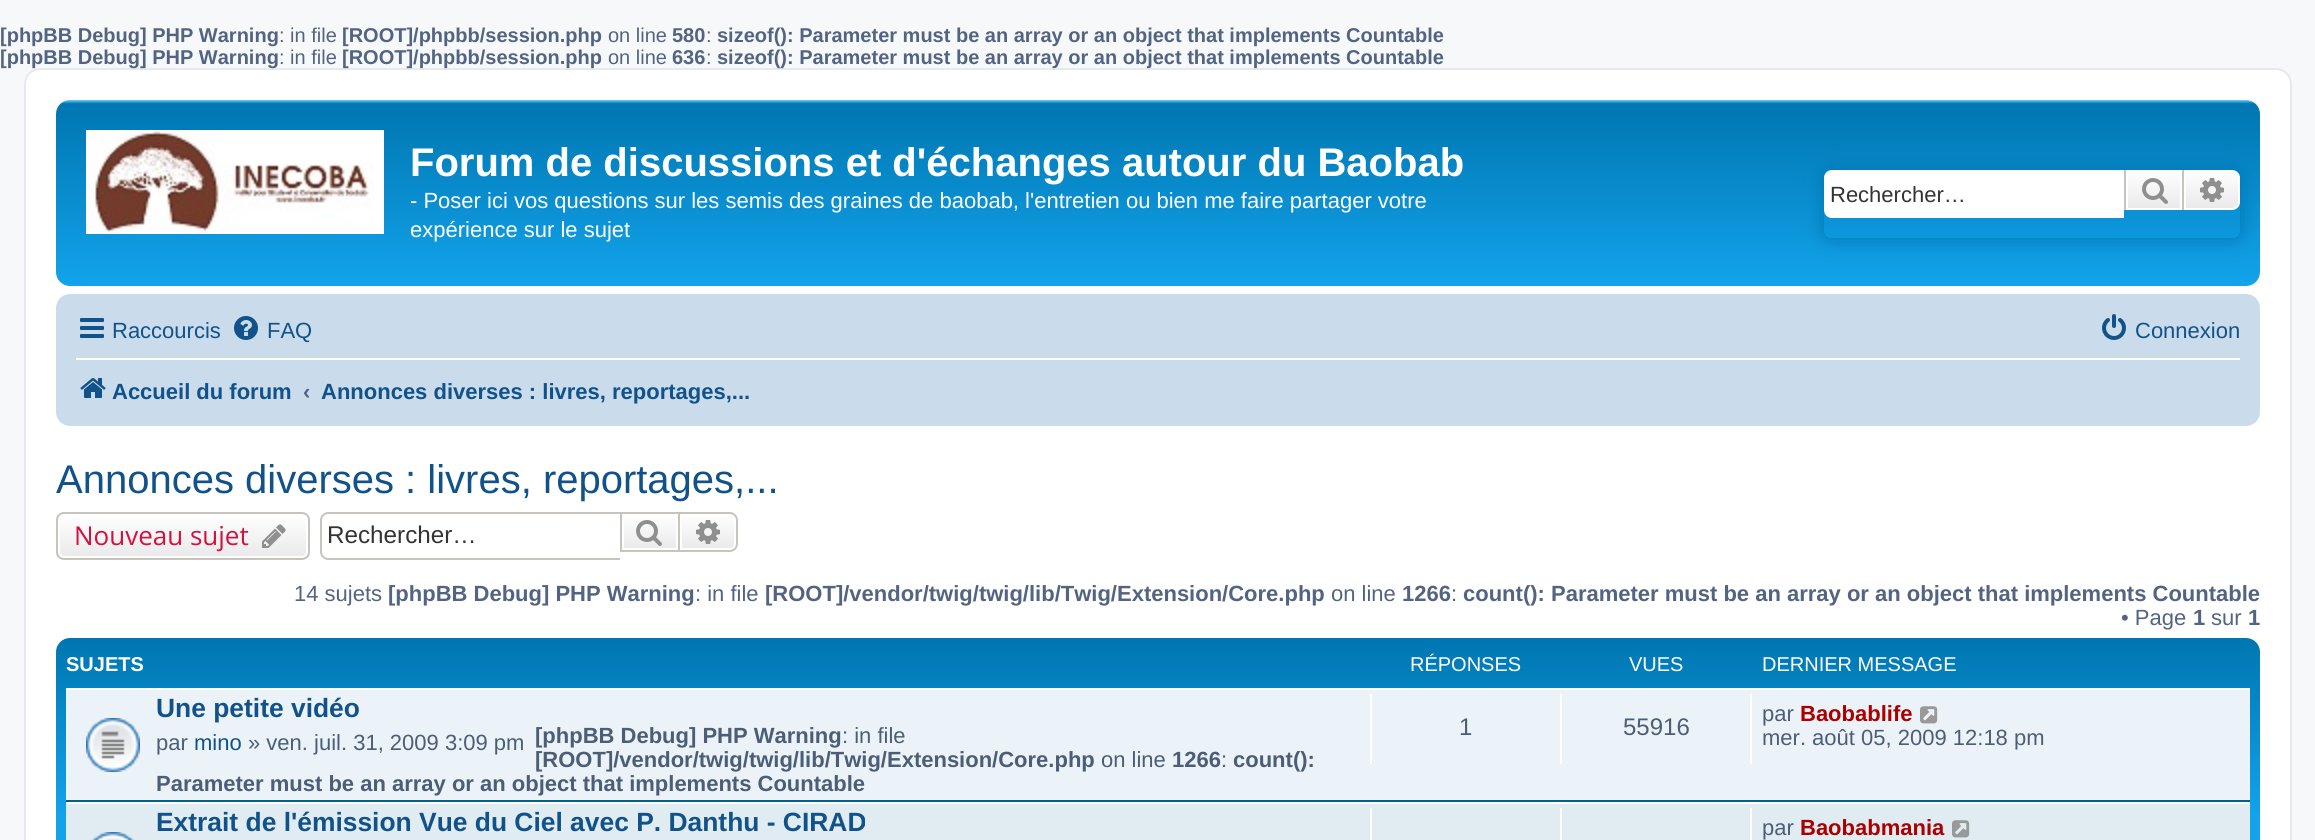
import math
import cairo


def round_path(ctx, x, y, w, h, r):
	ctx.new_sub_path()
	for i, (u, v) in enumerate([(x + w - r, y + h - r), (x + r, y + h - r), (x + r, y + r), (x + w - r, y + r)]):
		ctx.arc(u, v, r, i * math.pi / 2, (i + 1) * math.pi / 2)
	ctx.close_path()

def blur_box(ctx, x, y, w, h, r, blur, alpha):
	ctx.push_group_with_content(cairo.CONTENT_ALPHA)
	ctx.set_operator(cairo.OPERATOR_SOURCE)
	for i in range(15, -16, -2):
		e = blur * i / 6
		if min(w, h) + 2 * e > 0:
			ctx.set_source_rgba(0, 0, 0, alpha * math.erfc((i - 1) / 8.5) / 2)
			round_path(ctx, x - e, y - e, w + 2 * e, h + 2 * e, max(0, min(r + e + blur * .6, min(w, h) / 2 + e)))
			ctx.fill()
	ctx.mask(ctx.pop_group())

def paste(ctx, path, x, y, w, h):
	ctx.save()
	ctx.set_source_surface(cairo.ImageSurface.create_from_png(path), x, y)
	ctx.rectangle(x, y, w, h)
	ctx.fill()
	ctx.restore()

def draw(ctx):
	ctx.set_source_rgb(0.961, 0.969, 0.98)
	ctx.paint()
	ctx.select_font_face('Liberation Sans', cairo.FONT_SLANT_NORMAL, cairo.FONT_WEIGHT_BOLD)
	ctx.set_font_size(20)
	ctx.set_source_rgb(0.325, 0.392, 0.51)
	ctx.move_to(0, 42)
	ctx.show_text('[phpBB Debug] PHP Warning')
	ctx.select_font_face('Liberation Sans')
	ctx.move_to(279, 42)
	ctx.show_text(': in file')
	ctx.select_font_face('Liberation Sans', cairo.FONT_SLANT_NORMAL, cairo.FONT_WEIGHT_BOLD)
	ctx.move_to(342, 42)
	ctx.show_text('[ROOT]/phpbb/session.php')
	ctx.select_font_face('Liberation Sans')
	ctx.move_to(608, 42)
	ctx.show_text('on line')
	ctx.select_font_face('Liberation Sans', cairo.FONT_SLANT_NORMAL, cairo.FONT_WEIGHT_BOLD)
	ctx.move_to(672, 42)
	ctx.show_text('580')
	ctx.select_font_face('Liberation Sans')
	ctx.move_to(706, 42)
	ctx.show_text(':')
	ctx.select_font_face('Liberation Sans', cairo.FONT_SLANT_NORMAL, cairo.FONT_WEIGHT_BOLD)
	ctx.move_to(717, 42)
	ctx.show_text('sizeof(): Parameter must be an array or an object that implements Countable')
	ctx.set_source_rgb(1, 1, 1)
	round_path(ctx, 25, 69, 2266, 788, 15)
	ctx.fill_preserve()
	ctx.set_source_rgb(0.902, 0.914, 0.929)
	ctx.stroke()
	ctx.set_source_rgb(0.325, 0.392, 0.51)
	ctx.move_to(0, 64)
	ctx.show_text('[phpBB Debug] PHP Warning')
	ctx.select_font_face('Liberation Sans')
	ctx.move_to(279, 64)
	ctx.show_text(': in file')
	ctx.select_font_face('Liberation Sans', cairo.FONT_SLANT_NORMAL, cairo.FONT_WEIGHT_BOLD)
	ctx.move_to(342, 64)
	ctx.show_text('[ROOT]/phpbb/session.php')
	ctx.select_font_face('Liberation Sans')
	ctx.move_to(608, 64)
	ctx.show_text('on line')
	ctx.select_font_face('Liberation Sans', cairo.FONT_SLANT_NORMAL, cairo.FONT_WEIGHT_BOLD)
	ctx.move_to(672, 64)
	ctx.show_text('636')
	ctx.select_font_face('Liberation Sans')
	ctx.move_to(706, 64)
	ctx.show_text(':')
	ctx.select_font_face('Liberation Sans', cairo.FONT_SLANT_NORMAL, cairo.FONT_WEIGHT_BOLD)
	ctx.move_to(717, 64)
	ctx.show_text('sizeof(): Parameter must be an array or an object that implements Countable')
	gradient = cairo.LinearGradient(1158, 100, 1158, 286)
	gradient.add_color_stop_rgba(0, 0.416, 0.808, 1, 1)
	gradient.add_color_stop_rgba(0.02, 0, 0.463, 0.694, 1)
	gradient.add_color_stop_rgba(0.99, 0.071, 0.639, 0.922, 1)
	gradient.add_color_stop_rgba(1, 0.071, 0.639, 0.922, 1)
	ctx.set_source(gradient)
	round_path(ctx, 56, 100, 2204, 186, 14)
	ctx.fill()
	paste(ctx, 'media/1.png', 86, 130, 298, 104)
	ctx.set_font_size(40)
	ctx.set_source_rgb(1, 1, 1)
	ctx.move_to(410, 176)
	ctx.show_text('Forum de discussions et d\'échanges autour du Baobab')
	ctx.select_font_face('Liberation Sans')
	ctx.set_font_size(22)
	ctx.move_to(410, 208)
	ctx.show_text('- Poser ici vos questions sur les semis des graines de baobab, l\'entretien ou bien me faire partager votre')
	ctx.move_to(410, 237)
	ctx.show_text('expérience sur le sujet')
	ctx.save()
	ctx.set_fill_rule(cairo.FILL_RULE_EVEN_ODD)
	ctx.new_path()
	ctx.move_to(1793, 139)
	ctx.line_to(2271, 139)
	ctx.line_to(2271, 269)
	ctx.line_to(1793, 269)
	ctx.close_path()
	ctx.move_to(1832, 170)
	ctx.line_to(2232, 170)
	ctx.curve_to(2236.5, 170, 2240, 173.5, 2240, 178)
	ctx.line_to(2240, 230)
	ctx.curve_to(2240, 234.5, 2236.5, 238, 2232, 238)
	ctx.line_to(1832, 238)
	ctx.curve_to(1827.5, 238, 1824, 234.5, 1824, 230)
	ctx.line_to(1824, 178)
	ctx.curve_to(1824, 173.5, 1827.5, 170, 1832, 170)
	ctx.close_path()
	ctx.clip()
	ctx.set_source_rgb(0, 0.459, 0.69)
	blur_box(ctx, 1824, 170, 416, 68, 8, 10, 1)
	ctx.restore()
	ctx.new_path()
	ctx.move_to(1832, 170)
	ctx.line_to(2124, 170)
	ctx.line_to(2124, 218)
	ctx.line_to(1832, 218)
	ctx.curve_to(1827.5, 218, 1824, 214.5, 1824, 210)
	ctx.line_to(1824, 178)
	ctx.curve_to(1824, 173.5, 1827.5, 170, 1832, 170)
	ctx.close_path()
	ctx.fill()
	ctx.set_source_rgb(0.2, 0.2, 0.2)
	ctx.move_to(1830, 202)
	ctx.show_text('Rechercher…')
	gradient = cairo.LinearGradient(2154, 170, 2154, 210)
	gradient.add_color_stop_rgba(0, 1, 1, 1, 1)
	gradient.add_color_stop_rgba(1, 0.914, 0.914, 0.914, 1)
	ctx.set_source(gradient)
	ctx.rectangle(2128, 172, 52, 36)
	ctx.fill()
	ctx.rectangle(2127, 171, 54, 38)
	ctx.set_source_rgb(1, 1, 1)
	ctx.stroke()
	ctx.set_source_rgb(0.78, 0.765, 0.749)
	ctx.rectangle(2182, 170, 2, 40)
	ctx.fill()
	ctx.rectangle(2124, 170, 2, 40)
	ctx.fill()
	paste(ctx, 'media/2.png', 2142, 178, 26, 26)
	gradient = cairo.LinearGradient(2212, 170, 2212, 210)
	gradient.add_color_stop_rgba(0, 1, 1, 1, 1)
	gradient.add_color_stop_rgba(1, 0.914, 0.914, 0.914, 1)
	ctx.set_source(gradient)
	ctx.new_path()
	ctx.move_to(2185, 171)
	ctx.line_to(2232, 171)
	ctx.curve_to(2236, 171, 2239, 174, 2239, 178)
	ctx.line_to(2239, 202)
	ctx.curve_to(2239, 206, 2236, 209, 2232, 209)
	ctx.line_to(2185, 209)
	ctx.close_path()
	ctx.fill_preserve()
	ctx.set_source_rgb(1, 1, 1)
	ctx.stroke()
	paste(ctx, 'media/3.png', 2200, 178, 24, 24)
	ctx.set_source_rgb(0.792, 0.863, 0.922)
	round_path(ctx, 56, 294, 2204, 132, 14)
	ctx.fill()
	paste(ctx, 'media/4.png', 80, 318, 24, 20)
	ctx.set_source_rgb(0.063, 0.322, 0.537)
	ctx.move_to(112, 338)
	ctx.show_text('Raccourcis')
	paste(ctx, 'media/5.png', 234, 316, 24, 24)
	ctx.move_to(267, 338)
	ctx.show_text('FAQ')
	paste(ctx, 'media/6.png', 2102, 314, 24, 26)
	ctx.move_to(2135, 338)
	ctx.show_text('Connexion')
	ctx.set_source_rgb(1, 1, 1)
	ctx.rectangle(76, 358, 2164, 2)
	ctx.fill()
	paste(ctx, 'media/7.png', 80, 378, 26, 20)
	ctx.select_font_face('Liberation Sans', cairo.FONT_SLANT_NORMAL, cairo.FONT_WEIGHT_BOLD)
	ctx.set_source_rgb(0.063, 0.322, 0.537)
	ctx.move_to(112, 399)
	ctx.show_text('Accueil du forum')
	ctx.set_source_rgb(0.325, 0.392, 0.51)
	ctx.move_to(303, 399)
	ctx.show_text('‹')
	ctx.set_source_rgb(0.063, 0.322, 0.537)
	ctx.move_to(321, 399)
	ctx.show_text('Annonces diverses : livres, reportages,...')
	ctx.select_font_face('Liberation Sans')
	ctx.set_font_size(40)
	ctx.move_to(56, 493)
	ctx.show_text('Annonces diverses : livres, reportages,...')
	ctx.save()
	round_path(ctx, 56, 512, 254, 48, 8)
	ctx.clip()
	gradient = cairo.LinearGradient(183, 514, 183, 558)
	gradient.add_color_stop_rgba(0, 1, 1, 1, 1)
	gradient.add_color_stop_rgba(1, 0.914, 0.914, 0.914, 1)
	ctx.set_source(gradient)
	ctx.rectangle(56, 514, 254, 44)
	ctx.fill()
	ctx.restore()
	round_path(ctx, 59, 515, 248, 42, 5)
	ctx.set_source_rgb(1, 1, 1)
	ctx.stroke()
	round_path(ctx, 57, 513, 252, 46, 7)
	ctx.set_source_rgb(0.78, 0.765, 0.749)
	ctx.stroke()
	ctx.select_font_face('Open Sans')
	ctx.set_font_size(26)
	ctx.set_source_rgb(0.827, 0.067, 0.255)
	ctx.move_to(74, 545)
	ctx.show_text('Nouveau sujet')
	paste(ctx, 'media/8.png', 262, 524, 24, 24)
	ctx.set_source_rgb(0.78, 0.765, 0.749)
	ctx.set_fill_rule(cairo.FILL_RULE_EVEN_ODD)
	ctx.new_path()
	ctx.move_to(328, 512)
	ctx.line_to(620, 512)
	ctx.line_to(620, 560)
	ctx.line_to(328, 560)
	ctx.curve_to(324, 560, 320, 556, 320, 552)
	ctx.line_to(320, 520)
	ctx.curve_to(320, 516, 324, 512, 328, 512)
	ctx.close_path()
	ctx.move_to(328, 514)
	ctx.line_to(620, 514)
	ctx.line_to(620, 558)
	ctx.line_to(328, 558)
	ctx.curve_to(325, 558, 322, 555, 322, 552)
	ctx.line_to(322, 520)
	ctx.curve_to(322, 517, 325, 514, 328, 514)
	ctx.close_path()
	ctx.fill()
	ctx.select_font_face('Liberation Sans')
	ctx.set_font_size(24.25)
	ctx.set_source_rgb(0.2, 0.2, 0.2)
	ctx.move_to(327, 543)
	ctx.show_text('Rechercher…')
	gradient = cairo.LinearGradient(650, 514, 650, 550)
	gradient.add_color_stop_rgba(0, 1, 1, 1, 1)
	gradient.add_color_stop_rgba(1, 0.914, 0.914, 0.914, 1)
	ctx.set_source(gradient)
	ctx.rectangle(624, 518, 52, 30)
	ctx.fill()
	ctx.rectangle(621, 513, 58, 38)
	ctx.set_source_rgb(0.78, 0.765, 0.749)
	ctx.stroke()
	paste(ctx, 'media/9.png', 636, 520, 26, 26)
	gradient = cairo.LinearGradient(708, 514, 708, 550)
	gradient.add_color_stop_rgba(0, 1, 1, 1, 1)
	gradient.add_color_stop_rgba(1, 0.914, 0.914, 0.914, 1)
	ctx.set_source(gradient)
	ctx.new_path()
	ctx.move_to(681, 515)
	ctx.line_to(730, 515)
	ctx.curve_to(733, 515, 735, 517, 735, 520)
	ctx.line_to(735, 544)
	ctx.curve_to(735, 547, 733, 549, 730, 549)
	ctx.line_to(681, 549)
	ctx.close_path()
	ctx.fill_preserve()
	ctx.set_source_rgb(1, 1, 1)
	ctx.stroke()
	ctx.set_source_rgb(0.78, 0.765, 0.749)
	ctx.new_path()
	ctx.move_to(680, 512)
	ctx.line_to(730, 512)
	ctx.curve_to(734, 512, 738, 516, 738, 520)
	ctx.line_to(738, 544)
	ctx.curve_to(738, 548, 734, 552, 730, 552)
	ctx.line_to(680, 552)
	ctx.close_path()
	ctx.move_to(680, 514)
	ctx.line_to(730, 514)
	ctx.curve_to(733, 514, 736, 517, 736, 520)
	ctx.line_to(736, 544)
	ctx.curve_to(736, 547, 733, 550, 730, 550)
	ctx.line_to(680, 550)
	ctx.close_path()
	ctx.fill()
	paste(ctx, 'media/10.png', 696, 520, 24, 24)
	ctx.set_font_size(22)
	ctx.set_source_rgb(0.325, 0.392, 0.51)
	ctx.move_to(294, 601)
	ctx.show_text('14 sujets')
	ctx.select_font_face('Liberation Sans', cairo.FONT_SLANT_NORMAL, cairo.FONT_WEIGHT_BOLD)
	ctx.move_to(388, 601)
	ctx.show_text('[phpBB Debug] PHP Warning')
	ctx.select_font_face('Liberation Sans')
	ctx.move_to(695, 601)
	ctx.show_text(': in file')
	ctx.select_font_face('Liberation Sans', cairo.FONT_SLANT_NORMAL, cairo.FONT_WEIGHT_BOLD)
	ctx.move_to(765, 601)
	ctx.show_text('[ROOT]/vendor/twig/twig/lib/Twig/Extension/Core.php')
	ctx.select_font_face('Liberation Sans')
	ctx.move_to(1331, 601)
	ctx.show_text('on line')
	ctx.select_font_face('Liberation Sans', cairo.FONT_SLANT_NORMAL, cairo.FONT_WEIGHT_BOLD)
	ctx.move_to(1402, 601)
	ctx.show_text('1266')
	ctx.select_font_face('Liberation Sans')
	ctx.move_to(1451, 601)
	ctx.show_text(':')
	ctx.select_font_face('Liberation Sans', cairo.FONT_SLANT_NORMAL, cairo.FONT_WEIGHT_BOLD)
	ctx.move_to(1463, 601)
	ctx.show_text('count(): Parameter must be an array or an object that implements Countable')
	ctx.select_font_face('Liberation Sans')
	ctx.move_to(2121, 625)
	ctx.show_text('• Page')
	ctx.select_font_face('Liberation Sans', cairo.FONT_SLANT_NORMAL, cairo.FONT_WEIGHT_BOLD)
	ctx.move_to(2193, 625)
	ctx.show_text('1')
	ctx.select_font_face('Liberation Sans')
	ctx.move_to(2211, 625)
	ctx.show_text('sur')
	ctx.select_font_face('Liberation Sans', cairo.FONT_SLANT_NORMAL, cairo.FONT_WEIGHT_BOLD)
	ctx.move_to(2248, 625)
	ctx.show_text('1')
	gradient = cairo.LinearGradient(1158, 638, 1158, 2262)
	gradient.add_color_stop_rgba(0, 0.416, 0.808, 1, 1)
	gradient.add_color_stop_rgba(0, 0, 0.463, 0.694, 1)
	gradient.add_color_stop_rgba(0.11, 0.071, 0.639, 0.922, 1)
	gradient.add_color_stop_rgba(1, 0.071, 0.639, 0.922, 1)
	ctx.set_source(gradient)
	round_path(ctx, 56, 638, 2204, 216, 14)
	ctx.fill()
	ctx.set_font_size(20)
	ctx.set_source_rgb(1, 1, 1)
	ctx.move_to(66, 671)
	ctx.show_text('SUJETS')
	ctx.select_font_face('Liberation Sans')
	for x, y, s in [
		(1410, 671, 'RÉPONSES'),
		(1629, 671, 'VUES'),
		(1762, 671, 'DERNIER MESSAGE'),
	]:
		ctx.move_to(x, y)
		ctx.show_text(s)
	ctx.set_source_rgb(0.925, 0.953, 0.969)
	ctx.rectangle(66, 690, 2184, 110)
	ctx.fill()
	ctx.set_source_rgb(1, 1, 1)
	ctx.rectangle(66, 688, 2184, 2)
	ctx.fill()
	ctx.set_source_rgb(0, 0.376, 0.561)
	ctx.rectangle(66, 800, 2184, 2)
	ctx.fill()
	paste(ctx, 'media/11.png', 86, 718, 54, 54)
	ctx.select_font_face('Liberation Sans', cairo.FONT_SLANT_NORMAL, cairo.FONT_WEIGHT_BOLD)
	ctx.set_font_size(26.4)
	ctx.set_source_rgb(0.063, 0.322, 0.537)
	ctx.move_to(156, 717)
	ctx.show_text('Une petite vidéo')
	ctx.select_font_face('Liberation Sans')
	ctx.set_font_size(22)
	ctx.set_source_rgb(0.298, 0.365, 0.467)
	ctx.move_to(156, 750)
	ctx.show_text('par')
	ctx.set_source_rgb(0.063, 0.322, 0.537)
	ctx.move_to(194, 750)
	ctx.show_text('mino')
	ctx.set_source_rgb(0.298, 0.365, 0.467)
	ctx.move_to(248, 750)
	ctx.show_text('» ven. juil. 31, 2009 3:09 pm')
	ctx.select_font_face('Liberation Sans', cairo.FONT_SLANT_NORMAL, cairo.FONT_WEIGHT_BOLD)
	ctx.move_to(535, 743)
	ctx.show_text('[phpBB Debug] PHP Warning')
	ctx.select_font_face('Liberation Sans')
	ctx.move_to(842, 743)
	ctx.show_text(': in file')
	ctx.select_font_face('Liberation Sans', cairo.FONT_SLANT_NORMAL, cairo.FONT_WEIGHT_BOLD)
	ctx.move_to(535, 767)
	ctx.show_text('[ROOT]/vendor/twig/twig/lib/Twig/Extension/Core.php')
	ctx.select_font_face('Liberation Sans')
	ctx.move_to(1101, 767)
	ctx.show_text('on line')
	ctx.select_font_face('Liberation Sans', cairo.FONT_SLANT_NORMAL, cairo.FONT_WEIGHT_BOLD)
	ctx.move_to(1172, 767)
	ctx.show_text('1266')
	ctx.select_font_face('Liberation Sans')
	ctx.move_to(1221, 767)
	ctx.show_text(':')
	ctx.select_font_face('Liberation Sans', cairo.FONT_SLANT_NORMAL, cairo.FONT_WEIGHT_BOLD)
	ctx.move_to(1233, 767)
	ctx.show_text('count():')
	ctx.move_to(156, 791)
	ctx.show_text('Parameter must be an array or an object that implements Countable')
	ctx.set_source_rgb(1, 1, 1)
	ctx.rectangle(1370, 694, 2, 70)
	ctx.fill()
	ctx.select_font_face('Liberation Sans')
	ctx.set_font_size(24)
	ctx.set_source_rgb(0.298, 0.365, 0.467)
	ctx.move_to(1459, 735)
	ctx.show_text('1')
	ctx.set_source_rgb(1, 1, 1)
	ctx.rectangle(1560, 694, 2, 70)
	ctx.fill()
	ctx.set_source_rgb(0.298, 0.365, 0.467)
	ctx.move_to(1623, 735)
	ctx.show_text('55916')
	ctx.set_source_rgb(1, 1, 1)
	ctx.rectangle(1750, 694, 2, 70)
	ctx.fill()
	ctx.set_font_size(22)
	ctx.set_source_rgb(0.298, 0.365, 0.467)
	ctx.move_to(1762, 721)
	ctx.show_text('par')
	ctx.select_font_face('Liberation Sans', cairo.FONT_SLANT_NORMAL, cairo.FONT_WEIGHT_BOLD)
	ctx.set_source_rgb(0.667, 0, 0)
	ctx.move_to(1800, 721)
	ctx.show_text('Baobablife')
	paste(ctx, 'media/12.png', 1920, 706, 18, 18)
	ctx.select_font_face('Liberation Sans')
	ctx.set_source_rgb(0.298, 0.365, 0.467)
	ctx.move_to(1762, 745)
	ctx.show_text('mer. août 05, 2009 12:18 pm')
	ctx.set_source_rgb(0.882, 0.922, 0.949)
	ctx.rectangle(66, 804, 2184, 36)
	ctx.fill()
	ctx.set_source_rgb(1, 1, 1)
	ctx.rectangle(66, 802, 2184, 2)
	ctx.fill()
	paste(ctx, 'media/13.png', 91, 832, 44, 8)
	ctx.select_font_face('Liberation Sans', cairo.FONT_SLANT_NORMAL, cairo.FONT_WEIGHT_BOLD)
	ctx.set_font_size(26.4)
	ctx.set_source_rgb(0.063, 0.322, 0.537)
	ctx.move_to(156, 831)
	ctx.show_text('Extrait de l\'émission Vue du Ciel avec P. Danthu - CIRAD')
	ctx.set_source_rgb(1, 1, 1)
	ctx.rectangle(1370, 808, 2, 32)
	ctx.rectangle(1560, 808, 2, 32)
	ctx.rectangle(1750, 808, 2, 32)
	ctx.fill()
	ctx.select_font_face('Liberation Sans')
	ctx.set_font_size(22)
	ctx.set_source_rgb(0.298, 0.365, 0.467)
	ctx.move_to(1762, 835)
	ctx.show_text('par')
	ctx.select_font_face('Liberation Sans', cairo.FONT_SLANT_NORMAL, cairo.FONT_WEIGHT_BOLD)
	ctx.set_source_rgb(0.667, 0, 0)
	ctx.move_to(1800, 835)
	ctx.show_text('Baobabmania')
	paste(ctx, 'media/14.png', 1952, 820, 18, 18)


surface = cairo.ImageSurface(cairo.FORMAT_RGB24, 2315, 840)
ctx = cairo.Context(surface)
options = cairo.FontOptions()
options.set_hint_metrics(cairo.HINT_METRICS_OFF)
options.set_hint_style(cairo.HINT_STYLE_NONE)
ctx.set_font_options(options)
ctx.set_miter_limit(4)
draw(ctx)
surface.write_to_png('image.png')
